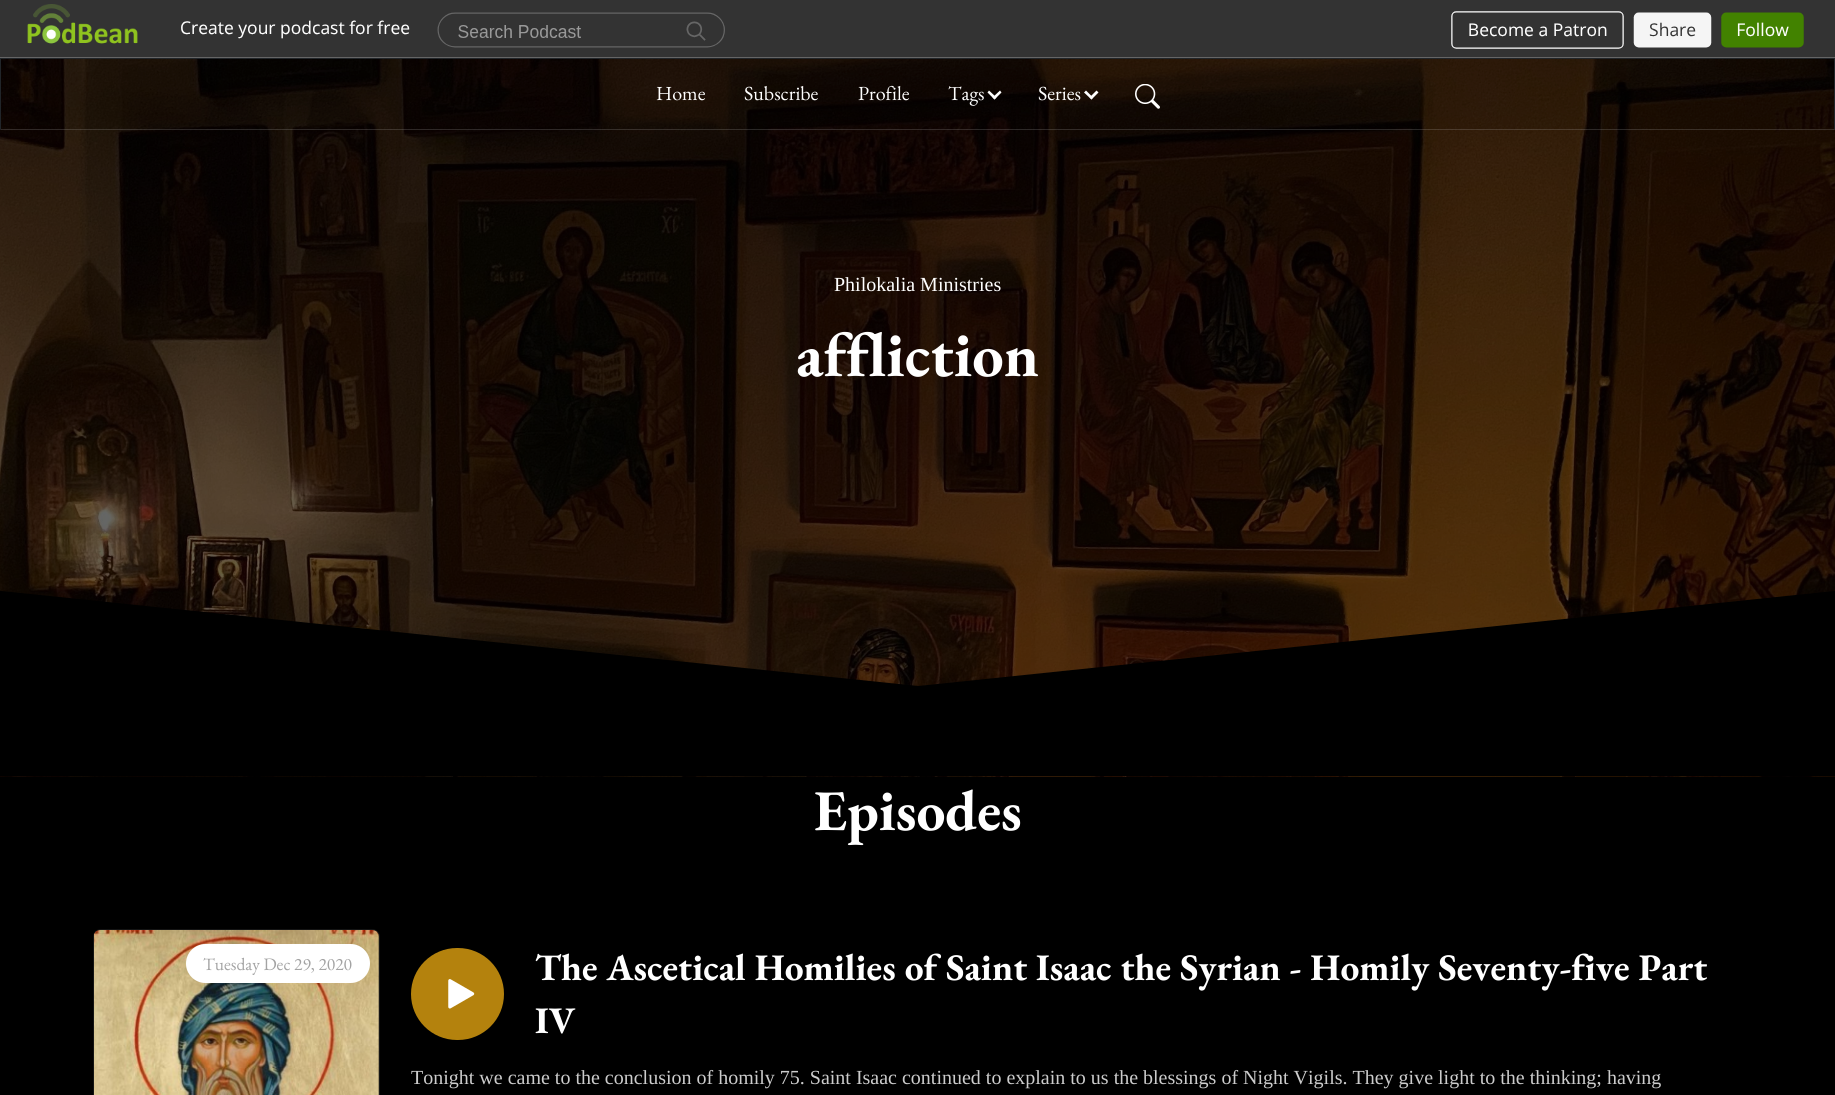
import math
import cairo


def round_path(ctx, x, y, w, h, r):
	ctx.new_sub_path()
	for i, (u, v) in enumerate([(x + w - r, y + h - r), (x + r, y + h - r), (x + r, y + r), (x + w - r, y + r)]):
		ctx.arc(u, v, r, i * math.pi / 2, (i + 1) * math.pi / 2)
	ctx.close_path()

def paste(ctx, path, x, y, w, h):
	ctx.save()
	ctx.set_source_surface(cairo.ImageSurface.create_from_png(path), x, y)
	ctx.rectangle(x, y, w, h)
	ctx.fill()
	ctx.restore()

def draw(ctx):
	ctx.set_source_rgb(0, 0, 0)
	ctx.paint()
	ctx.set_source_rgb(0.2, 0.2, 0.2)
	ctx.rectangle(0, 0, 1835, 4)
	ctx.fill()
	paste(ctx, 'media/1.png', 0, 4, 1835, 54)
	paste(ctx, 'media/3.png', 0, 59, 1835, 718)
	ctx.set_source_rgba(0, 0, 0, 0.09)
	ctx.rectangle(29, 59, 1806, 71)
	ctx.fill()
	ctx.set_source_rgb(0.129, 0.145, 0.161)
	ctx.rectangle(0, 58, 1835, 1)
	ctx.fill()
	ctx.new_path()
	ctx.move_to(1835, 58)
	ctx.line_to(1835, 130)
	ctx.line_to(1834, 129)
	ctx.line_to(1834, 59)
	ctx.close_path()
	ctx.fill()
	ctx.set_source_rgba(1, 1, 1, 0.15)
	ctx.new_path()
	ctx.move_to(1835, 130)
	ctx.line_to(0, 130)
	ctx.line_to(1, 129)
	ctx.line_to(1834, 129)
	ctx.close_path()
	ctx.fill()
	ctx.set_source_rgb(0.129, 0.145, 0.161)
	ctx.new_path()
	ctx.move_to(0, 130)
	ctx.line_to(0, 58)
	ctx.line_to(1, 59)
	ctx.line_to(1, 129)
	ctx.close_path()
	ctx.fill()
	ctx.select_font_face('EB Garamond')
	ctx.set_font_size(20)
	ctx.set_source_rgb(1, 1, 1)
	for x, y, s in [
		(656, 100, 'Home'),
		(744, 100, 'Subscribe'),
		(858, 100, 'Profile'),
		(948, 100, 'Tags'),
	]:
		ctx.move_to(x, y)
		ctx.show_text(s)
	ctx.new_path()
	ctx.move_to(1000, 90.5)
	ctx.line_to(1001.5, 92.5)
	ctx.line_to(994.5, 99.5)
	ctx.line_to(992.5, 97.5)
	ctx.close_path()
	ctx.fill()
	ctx.new_path()
	ctx.move_to(989, 90.5)
	ctx.line_to(996.5, 97.5)
	ctx.line_to(994.5, 99.5)
	ctx.line_to(987.5, 92.5)
	ctx.close_path()
	ctx.fill()
	ctx.move_to(1038, 100)
	ctx.show_text('Series')
	ctx.new_path()
	ctx.move_to(1096.5, 90.5)
	ctx.line_to(1098.5, 92.5)
	ctx.line_to(1091.5, 99.5)
	ctx.line_to(1089.5, 97.5)
	ctx.close_path()
	ctx.fill()
	ctx.new_path()
	ctx.move_to(1086, 90.5)
	ctx.line_to(1093, 97.5)
	ctx.line_to(1091.5, 99.5)
	ctx.line_to(1084, 92.5)
	ctx.close_path()
	ctx.fill()
	paste(ctx, 'media/2.png', 1135, 84, 25, 25)
	ctx.select_font_face('Liberation Serif')
	ctx.move_to(834, 291)
	ctx.show_text('Philokalia Ministries')
	ctx.select_font_face('EB Garamond', cairo.FONT_SLANT_NORMAL, cairo.FONT_WEIGHT_BOLD)
	ctx.set_font_size(62.5)
	ctx.move_to(796, 376)
	ctx.show_text('affliction')
	ctx.set_source_rgb(0, 0, 0)
	ctx.new_path()
	ctx.move_to(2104, 776)
	ctx.line_to(-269, 776)
	ctx.line_to(-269, 563)
	ctx.line_to(918, 686)
	ctx.line_to(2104, 563)
	ctx.close_path()
	ctx.fill()
	ctx.set_font_size(57.5)
	ctx.set_source_rgb(1, 1, 1)
	ctx.move_to(814, 830)
	ctx.show_text('Episodes')
	round_path(ctx, 93.5, 929.5, 286, 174, 7.5)
	ctx.set_source_rgb(0.082, 0.082, 0.082)
	ctx.set_line_width(1)
	ctx.stroke()
	paste(ctx, 'media/4.png', 94, 930, 285, 165)
	ctx.set_source_rgb(1, 1, 1)
	round_path(ctx, 186, 944, 184, 39, 19.5)
	ctx.fill()
	ctx.select_font_face('EB Garamond')
	ctx.set_font_size(17.5)
	ctx.set_source_rgb(0.639, 0.639, 0.639)
	ctx.move_to(203, 970)
	ctx.show_text('Tuesday Dec 29, 2020')
	ctx.set_source_rgb(0.706, 0.51, 0.051)
	round_path(ctx, 411, 948, 93, 92, 46)
	ctx.fill()
	paste(ctx, 'media/5.png', 448, 979, 27, 30)
	ctx.select_font_face('EB Garamond', cairo.FONT_SLANT_NORMAL, cairo.FONT_WEIGHT_BOLD)
	ctx.set_font_size(37.5)
	ctx.set_source_rgb(1, 1, 1)
	ctx.move_to(535, 980)
	ctx.show_text('The Ascetical Homilies of Saint Isaac the Syrian - Homily Seventy-five Part')
	ctx.move_to(535, 1033)
	ctx.show_text('IV')
	ctx.select_font_face('Liberation Serif')
	ctx.set_font_size(20)
	ctx.set_source_rgb(0.8, 0.8, 0.8)
	ctx.move_to(411, 1084)
	ctx.show_text('Tonight we came to the conclusion of homily 75. Saint Isaac continued to explain to us the blessings of Night Vigils. They give light to the thinking; having')


surface = cairo.ImageSurface(cairo.FORMAT_RGB24, 1835, 1095)
ctx = cairo.Context(surface)
options = cairo.FontOptions()
options.set_hint_metrics(cairo.HINT_METRICS_OFF)
options.set_hint_style(cairo.HINT_STYLE_NONE)
ctx.set_font_options(options)
ctx.set_miter_limit(4)
draw(ctx)
surface.write_to_png('image.png')
